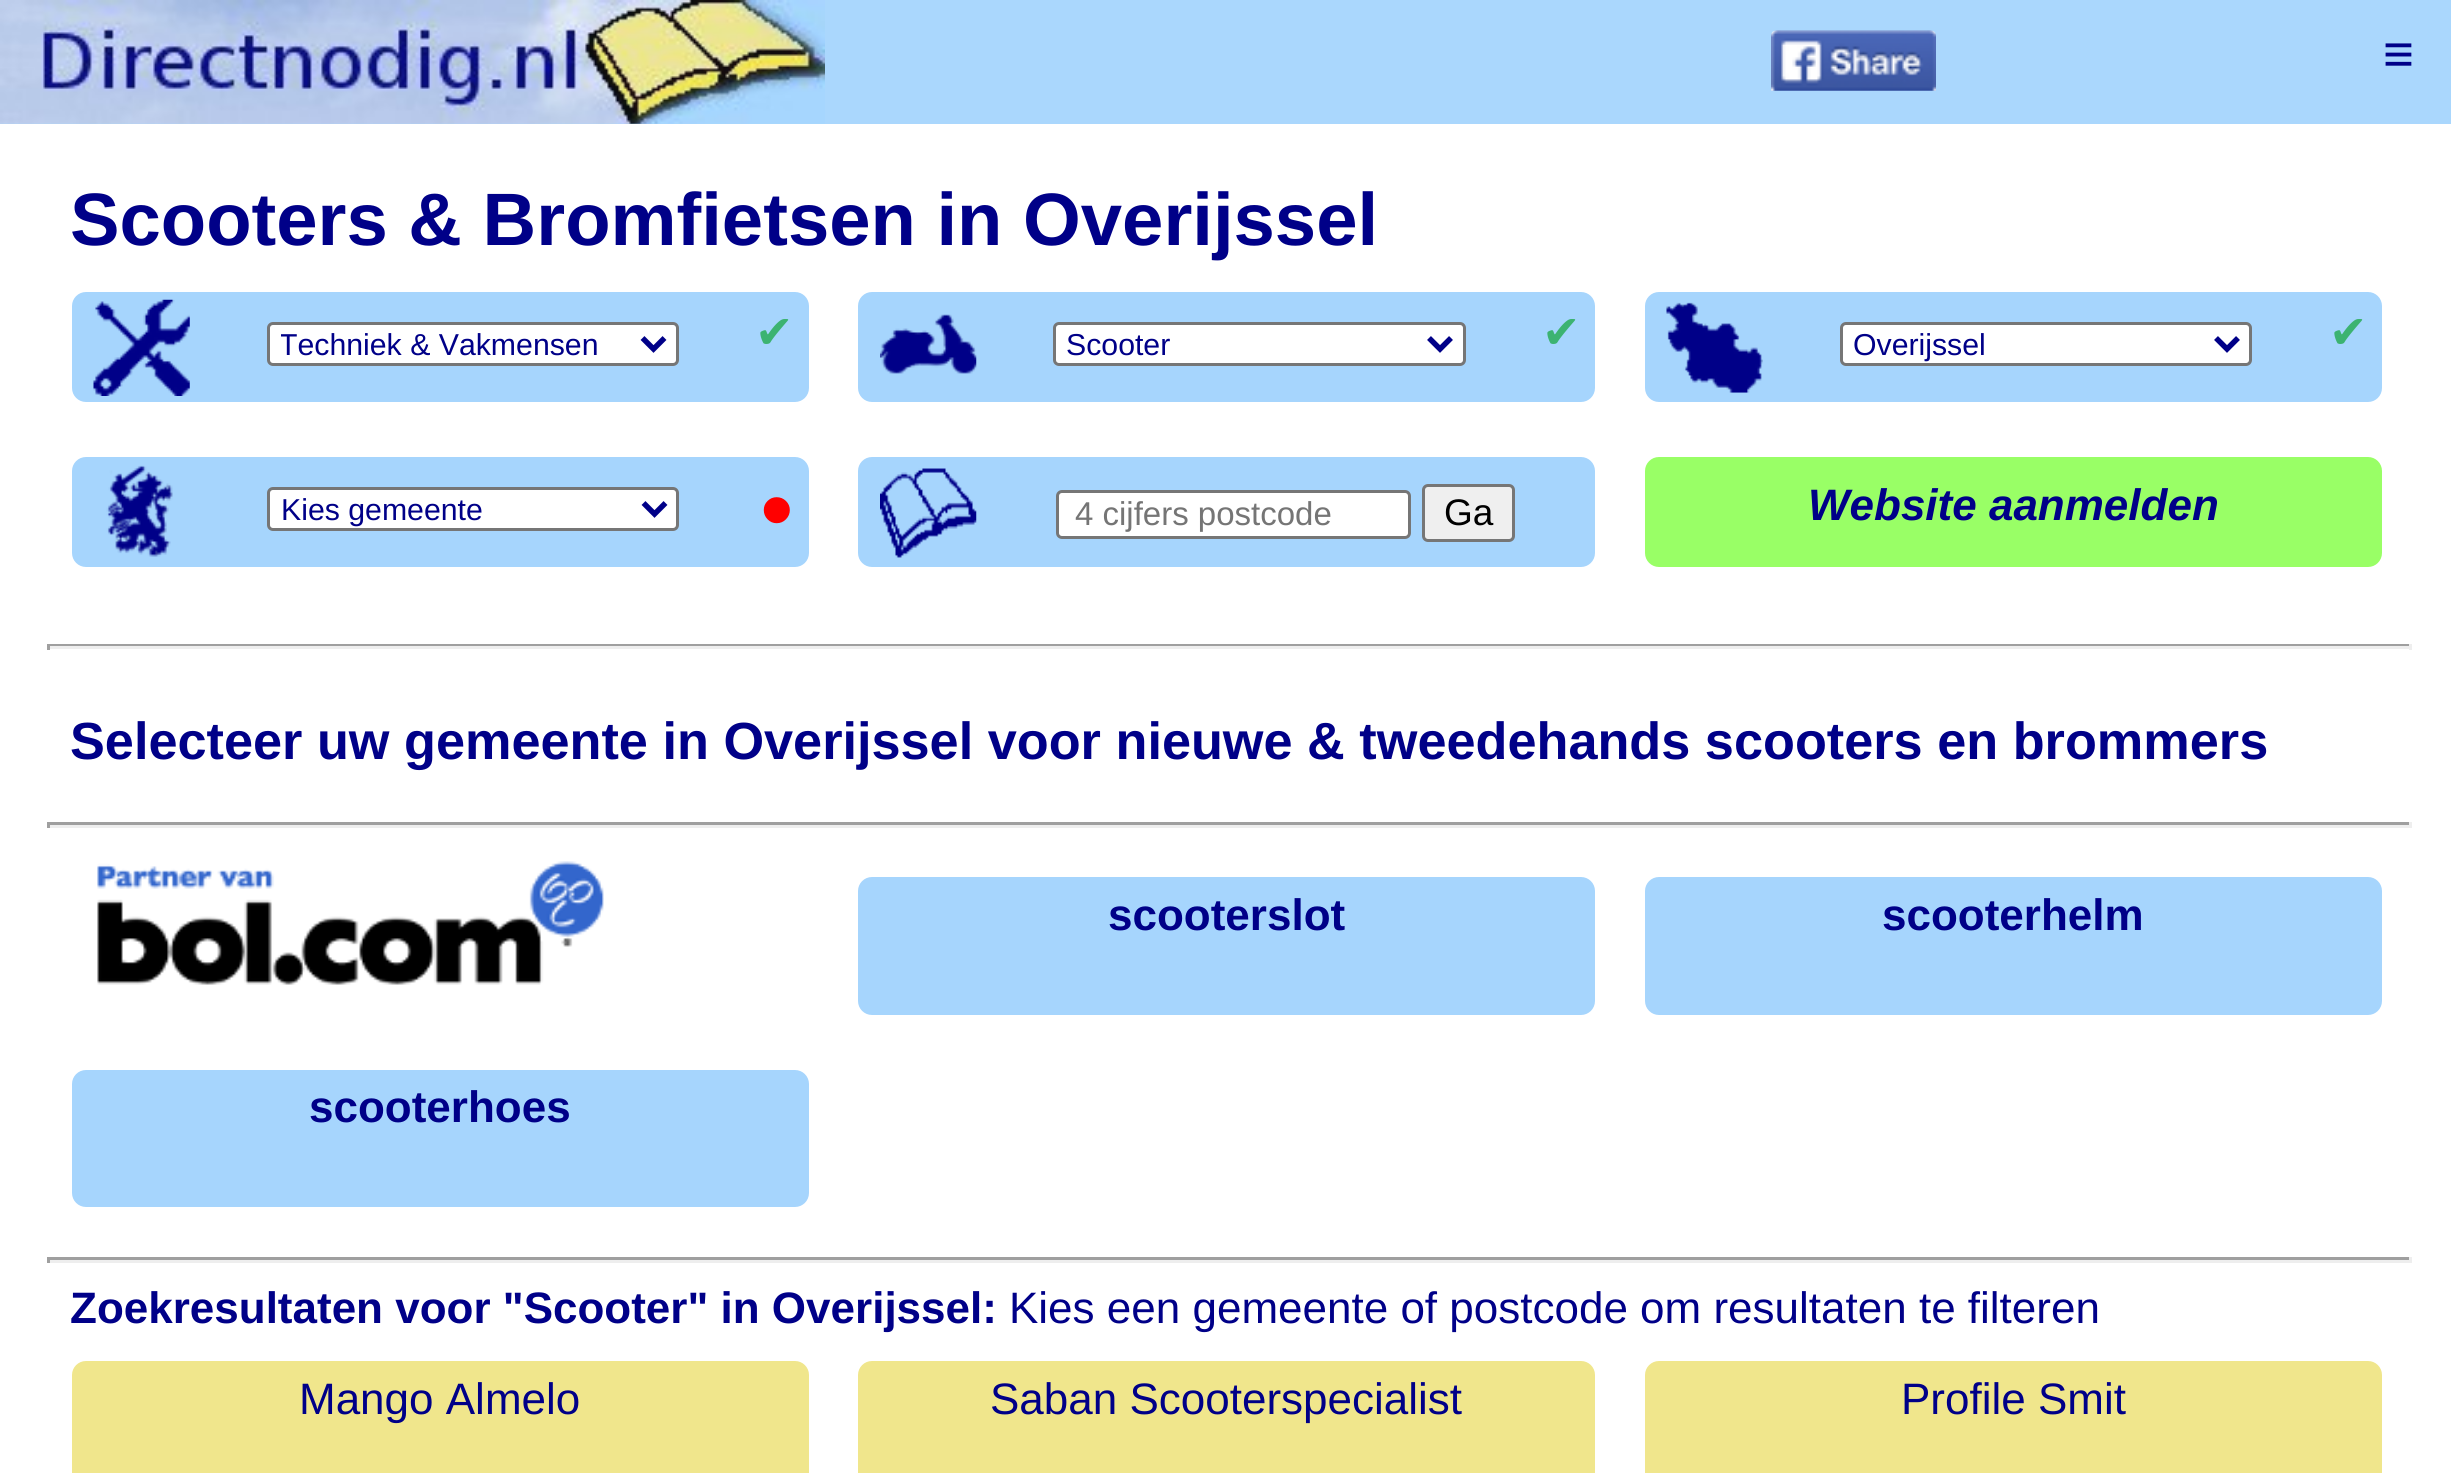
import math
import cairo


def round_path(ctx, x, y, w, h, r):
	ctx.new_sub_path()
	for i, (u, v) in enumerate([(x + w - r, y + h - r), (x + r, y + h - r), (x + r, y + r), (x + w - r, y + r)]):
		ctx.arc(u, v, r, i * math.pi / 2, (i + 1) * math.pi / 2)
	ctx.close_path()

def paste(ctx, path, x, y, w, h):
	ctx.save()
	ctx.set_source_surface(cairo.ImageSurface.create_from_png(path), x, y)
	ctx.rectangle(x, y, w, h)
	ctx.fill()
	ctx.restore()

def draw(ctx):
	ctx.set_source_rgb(1, 1, 1)
	ctx.paint()
	ctx.set_source_rgb(0.667, 0.843, 0.992)
	ctx.rectangle(0, 0, 2451, 124)
	ctx.fill()
	paste(ctx, 'media/1.png', 0, 0, 825, 124)
	paste(ctx, 'media/2.png', 1771, 30, 165, 61)
	ctx.select_font_face('Liberation Sans', cairo.FONT_SLANT_NORMAL, cairo.FONT_WEIGHT_BOLD)
	ctx.set_font_size(53)
	ctx.set_source_rgb(0, 0, 0.533)
	ctx.move_to(2383, 72)
	ctx.show_text('≡')
	ctx.set_font_size(74.25)
	ctx.move_to(70, 245)
	ctx.show_text('Scooters & Bromfietsen in Overijssel')
	ctx.set_source_rgb(0.651, 0.835, 0.992)
	round_path(ctx, 72, 292, 737, 110, 14)
	ctx.fill()
	paste(ctx, 'media/3.png', 93, 299, 97, 97)
	ctx.set_source_rgb(1, 1, 1)
	round_path(ctx, 268.5, 323.5, 409, 41, 4.5)
	ctx.fill_preserve()
	ctx.set_source_rgb(0.463, 0.463, 0.463)
	ctx.set_line_width(3)
	ctx.stroke()
	ctx.new_path()
	ctx.move_to(642.5, 338)
	ctx.line_to(653.5, 349)
	ctx.line_to(664.5, 338)
	ctx.set_source_rgb(0, 0, 0.533)
	ctx.set_line_width(5.5)
	ctx.stroke()
	ctx.save()
	ctx.rectangle(281, 325, 352, 38)
	ctx.clip()
	ctx.select_font_face('Liberation Sans')
	ctx.set_font_size(30.25)
	ctx.move_to(279, 355)
	ctx.show_text('Techniek & Vakmensen')
	ctx.restore()
	ctx.select_font_face('DejaVu Sans')
	ctx.set_font_size(46)
	ctx.set_source_rgb(0.235, 0.702, 0.443)
	ctx.move_to(755, 348)
	ctx.show_text('✔')
	ctx.set_source_rgb(0.651, 0.835, 0.992)
	round_path(ctx, 858, 292, 737, 110, 14)
	ctx.fill()
	paste(ctx, 'media/4.png', 880, 314, 97, 60)
	ctx.set_source_rgb(1, 1, 1)
	round_path(ctx, 1054.5, 323.5, 410, 41, 4.5)
	ctx.fill_preserve()
	ctx.set_source_rgb(0.463, 0.463, 0.463)
	ctx.set_line_width(3)
	ctx.stroke()
	ctx.new_path()
	ctx.move_to(1429, 338)
	ctx.line_to(1440, 349)
	ctx.line_to(1451, 338)
	ctx.set_source_rgb(0, 0, 0.533)
	ctx.set_line_width(5.5)
	ctx.stroke()
	ctx.select_font_face('Liberation Sans')
	ctx.set_font_size(30.25)
	ctx.move_to(1066, 355)
	ctx.show_text('Scooter')
	ctx.select_font_face('DejaVu Sans')
	ctx.set_font_size(46)
	ctx.set_source_rgb(0.235, 0.702, 0.443)
	ctx.move_to(1542, 348)
	ctx.show_text('✔')
	ctx.set_source_rgb(0.651, 0.835, 0.992)
	round_path(ctx, 1645, 292, 737, 110, 14)
	ctx.fill()
	paste(ctx, 'media/5.png', 1666, 302, 97, 91)
	ctx.set_source_rgb(1, 1, 1)
	round_path(ctx, 1841.5, 323.5, 409, 41, 4.5)
	ctx.fill_preserve()
	ctx.set_source_rgb(0.463, 0.463, 0.463)
	ctx.set_line_width(3)
	ctx.stroke()
	ctx.new_path()
	ctx.move_to(2216, 338)
	ctx.line_to(2227, 349)
	ctx.line_to(2238, 338)
	ctx.set_source_rgb(0, 0, 0.533)
	ctx.set_line_width(5.5)
	ctx.stroke()
	ctx.select_font_face('Liberation Sans')
	ctx.set_font_size(30.25)
	ctx.move_to(1853, 355)
	ctx.show_text('Overijssel')
	ctx.select_font_face('DejaVu Sans')
	ctx.set_font_size(46)
	ctx.set_source_rgb(0.235, 0.702, 0.443)
	ctx.move_to(2329, 348)
	ctx.show_text('✔')
	ctx.set_source_rgb(0.651, 0.835, 0.992)
	round_path(ctx, 72, 457, 737, 110, 14)
	ctx.fill()
	paste(ctx, 'media/6.png', 106, 465, 67, 92)
	ctx.set_source_rgb(1, 1, 1)
	round_path(ctx, 268.5, 488.5, 409, 41, 4.5)
	ctx.fill_preserve()
	ctx.set_source_rgb(0.463, 0.463, 0.463)
	ctx.set_line_width(3)
	ctx.stroke()
	ctx.new_path()
	ctx.move_to(643.5, 503)
	ctx.line_to(654.5, 514)
	ctx.line_to(665.5, 503)
	ctx.set_source_rgb(0, 0, 0.533)
	ctx.set_line_width(5.5)
	ctx.stroke()
	ctx.select_font_face('Liberation Sans')
	ctx.set_font_size(30.25)
	ctx.move_to(281, 520)
	ctx.show_text('Kies gemeente')
	ctx.set_font_size(96)
	ctx.set_source_rgb(1, 0, 0)
	ctx.move_to(760, 542)
	ctx.show_text('•')
	ctx.set_source_rgb(0.651, 0.835, 0.992)
	round_path(ctx, 858, 457, 737, 110, 14)
	ctx.fill()
	paste(ctx, 'media/7.png', 880, 468, 97, 90)
	ctx.set_source_rgb(1, 1, 1)
	round_path(ctx, 1057.5, 491.5, 352, 46, 4.5)
	ctx.fill_preserve()
	ctx.set_source_rgb(0.463, 0.463, 0.463)
	ctx.set_line_width(3)
	ctx.stroke()
	ctx.set_font_size(33)
	ctx.set_source_rgb(0.459, 0.459, 0.459)
	ctx.move_to(1075, 525)
	ctx.show_text('4 cijfers postcode')
	ctx.set_source_rgb(0.937, 0.937, 0.937)
	round_path(ctx, 1423.5, 485.5, 90, 55, 4.5)
	ctx.fill_preserve()
	ctx.set_source_rgb(0.463, 0.463, 0.463)
	ctx.stroke()
	ctx.set_font_size(37)
	ctx.set_source_rgb(0, 0, 0)
	ctx.move_to(1444, 525)
	ctx.show_text('Ga')
	ctx.set_source_rgb(0.6, 1, 0.4)
	round_path(ctx, 1645, 457, 737, 110, 14)
	ctx.fill()
	ctx.select_font_face('Liberation Sans', cairo.FONT_SLANT_ITALIC, cairo.FONT_WEIGHT_BOLD)
	ctx.set_font_size(44)
	ctx.set_source_rgb(0, 0, 0.533)
	ctx.move_to(1808, 520)
	ctx.show_text('Website aanmelden')
	ctx.set_source_rgb(0.624, 0.624, 0.624)
	ctx.rectangle(47, 644, 2365, 2)
	ctx.fill()
	ctx.set_source_rgb(0.933, 0.933, 0.933)
	ctx.rectangle(2409, 644, 3, 6)
	ctx.rectangle(47, 646, 2365, 3)
	ctx.fill()
	ctx.set_source_rgb(0.624, 0.624, 0.624)
	ctx.rectangle(47, 644, 3, 6)
	ctx.fill()
	ctx.select_font_face('Liberation Sans', cairo.FONT_SLANT_NORMAL, cairo.FONT_WEIGHT_BOLD)
	ctx.set_font_size(52.25)
	ctx.set_source_rgb(0, 0, 0.533)
	ctx.move_to(70, 759)
	ctx.show_text('Selecteer uw gemeente in Overijssel voor nieuwe & tweedehands scooters en brommers')
	ctx.set_source_rgb(0.624, 0.624, 0.624)
	ctx.rectangle(47, 822, 2365, 3)
	ctx.fill()
	ctx.set_source_rgb(0.933, 0.933, 0.933)
	ctx.rectangle(2409, 822, 3, 6)
	ctx.rectangle(47, 825, 2365, 3)
	ctx.fill()
	ctx.set_source_rgb(0.624, 0.624, 0.624)
	ctx.rectangle(47, 822, 3, 6)
	ctx.fill()
	paste(ctx, 'media/8.png', 97, 861, 507, 124)
	ctx.set_source_rgb(0.651, 0.835, 0.992)
	round_path(ctx, 858, 877, 737, 138, 14)
	ctx.fill()
	ctx.set_font_size(44)
	ctx.set_source_rgb(0, 0, 0.533)
	ctx.move_to(1108, 930)
	ctx.show_text('scooterslot')
	ctx.set_source_rgb(0.651, 0.835, 0.992)
	round_path(ctx, 1645, 877, 737, 138, 14)
	ctx.fill()
	ctx.set_source_rgb(0, 0, 0.533)
	ctx.move_to(1882, 930)
	ctx.show_text('scooterhelm')
	ctx.set_source_rgb(0.651, 0.835, 0.992)
	round_path(ctx, 72, 1070, 737, 137, 14)
	ctx.fill()
	ctx.set_source_rgb(0, 0, 0.533)
	ctx.move_to(309, 1122)
	ctx.show_text('scooterhoes')
	ctx.set_source_rgb(0.624, 0.624, 0.624)
	ctx.rectangle(47, 1257, 2365, 3)
	ctx.fill()
	ctx.set_source_rgb(0.933, 0.933, 0.933)
	ctx.rectangle(2409, 1257, 3, 6)
	ctx.rectangle(47, 1260, 2365, 3)
	ctx.fill()
	ctx.set_source_rgb(0.624, 0.624, 0.624)
	ctx.rectangle(47, 1257, 3, 6)
	ctx.fill()
	ctx.set_source_rgb(0, 0, 0.533)
	ctx.move_to(70, 1323)
	ctx.show_text('Zoekresultaten voor "Scooter" in Overijssel:')
	ctx.select_font_face('Liberation Sans')
	ctx.move_to(1009, 1323)
	ctx.show_text('Kies een gemeente of postcode om resultaten te filteren')
	ctx.set_source_rgb(0.941, 0.902, 0.549)
	round_path(ctx, 72, 1361, 737, 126, 14)
	ctx.fill()
	ctx.set_source_rgb(0, 0, 0.533)
	ctx.move_to(299, 1414)
	ctx.show_text('Mango Almelo')
	ctx.set_source_rgb(0.941, 0.902, 0.549)
	round_path(ctx, 858, 1361, 737, 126, 14)
	ctx.fill()
	ctx.set_source_rgb(0, 0, 0.533)
	ctx.move_to(990, 1414)
	ctx.show_text('Saban Scooterspecialist')
	ctx.set_source_rgb(0.941, 0.902, 0.549)
	round_path(ctx, 1645, 1361, 737, 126, 14)
	ctx.fill()
	ctx.set_source_rgb(0, 0, 0.533)
	ctx.move_to(1901, 1414)
	ctx.show_text('Profile Smit')


surface = cairo.ImageSurface(cairo.FORMAT_RGB24, 2451, 1473)
ctx = cairo.Context(surface)
options = cairo.FontOptions()
options.set_hint_metrics(cairo.HINT_METRICS_OFF)
options.set_hint_style(cairo.HINT_STYLE_NONE)
ctx.set_font_options(options)
ctx.set_miter_limit(4)
draw(ctx)
surface.write_to_png('image.png')
